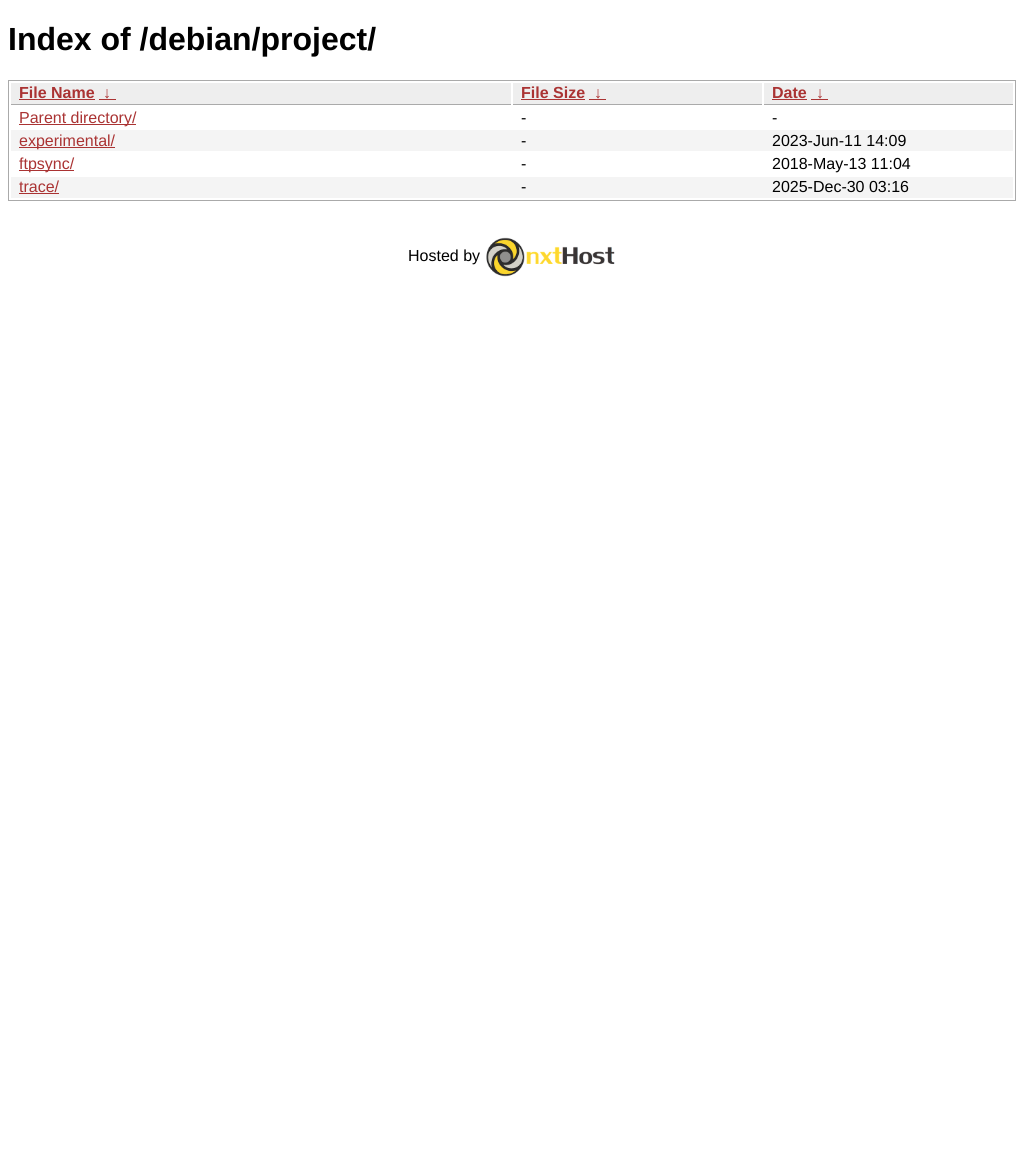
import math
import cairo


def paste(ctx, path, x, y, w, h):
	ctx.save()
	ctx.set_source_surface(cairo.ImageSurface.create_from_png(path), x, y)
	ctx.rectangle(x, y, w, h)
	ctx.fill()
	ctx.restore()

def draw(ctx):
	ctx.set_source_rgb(1, 1, 1)
	ctx.paint()
	ctx.select_font_face('Liberation Sans', cairo.FONT_SLANT_NORMAL, cairo.FONT_WEIGHT_BOLD)
	ctx.set_font_size(32)
	ctx.set_source_rgb(0, 0, 0)
	ctx.move_to(8, 50)
	ctx.show_text('Index of /debian/project/')
	ctx.rectangle(8.5, 80.5, 1007, 120)
	ctx.set_source_rgb(0.667, 0.667, 0.667)
	ctx.set_line_width(1)
	ctx.stroke()
	ctx.set_source_rgb(0.933, 0.933, 0.933)
	ctx.rectangle(11, 83, 500, 21)
	ctx.fill()
	ctx.set_source_rgb(0.667, 0.667, 0.667)
	ctx.rectangle(11, 104, 500, 1)
	ctx.fill()
	ctx.set_font_size(16)
	ctx.set_source_rgb(0.667, 0.2, 0.2)
	ctx.move_to(19, 98)
	ctx.show_text('File Name')
	ctx.rectangle(19, 99, 76, 1)
	ctx.fill()
	ctx.move_to(103, 98)
	ctx.show_text('↓')
	ctx.rectangle(99, 99, 17, 1)
	ctx.fill()
	ctx.set_source_rgb(0.933, 0.933, 0.933)
	ctx.rectangle(513, 83, 249, 21)
	ctx.fill()
	ctx.set_source_rgb(0.667, 0.667, 0.667)
	ctx.rectangle(513, 104, 249, 1)
	ctx.fill()
	ctx.set_source_rgb(0.667, 0.2, 0.2)
	ctx.move_to(521, 98)
	ctx.show_text('File Size')
	ctx.rectangle(521, 99, 64, 1)
	ctx.fill()
	ctx.move_to(594, 98)
	ctx.show_text('↓')
	ctx.rectangle(589, 99, 17, 1)
	ctx.fill()
	ctx.set_source_rgb(0.933, 0.933, 0.933)
	ctx.rectangle(764, 83, 249, 21)
	ctx.fill()
	ctx.set_source_rgb(0.667, 0.667, 0.667)
	ctx.rectangle(764, 104, 249, 1)
	ctx.fill()
	ctx.set_source_rgb(0.667, 0.2, 0.2)
	ctx.move_to(772, 98)
	ctx.show_text('Date')
	ctx.rectangle(772, 99, 35, 1)
	ctx.fill()
	ctx.move_to(816, 98)
	ctx.show_text('↓')
	ctx.rectangle(811, 99, 17, 1)
	ctx.fill()
	ctx.rectangle(19, 124, 117, 1)
	ctx.fill()
	ctx.select_font_face('Liberation Sans')
	ctx.move_to(19, 123)
	ctx.show_text('Parent directory/')
	ctx.set_source_rgb(0, 0, 0)
	ctx.move_to(521, 123)
	ctx.show_text('-')
	ctx.move_to(772, 123)
	ctx.show_text('-')
	ctx.set_source_rgb(0.957, 0.957, 0.957)
	ctx.rectangle(11, 130, 1002, 21)
	ctx.fill()
	ctx.set_source_rgb(0.667, 0.2, 0.2)
	ctx.rectangle(19, 147, 96, 1)
	ctx.fill()
	ctx.move_to(19, 146)
	ctx.show_text('experimental/')
	ctx.set_source_rgb(0, 0, 0)
	ctx.move_to(521, 146)
	ctx.show_text('-')
	ctx.move_to(772, 146)
	ctx.show_text('2023-Jun-11 14:09')
	ctx.set_source_rgb(0.667, 0.2, 0.2)
	ctx.rectangle(19, 170, 55, 1)
	ctx.fill()
	ctx.move_to(19, 169)
	ctx.show_text('ftpsync/')
	ctx.set_source_rgb(0, 0, 0)
	ctx.move_to(521, 169)
	ctx.show_text('-')
	ctx.move_to(772, 169)
	ctx.show_text('2018-May-13 11:04')
	ctx.set_source_rgb(0.957, 0.957, 0.957)
	ctx.rectangle(11, 177, 1002, 21)
	ctx.fill()
	ctx.set_source_rgb(0.667, 0.2, 0.2)
	ctx.move_to(19, 192)
	ctx.show_text('trace/')
	ctx.rectangle(19, 193, 40, 1)
	ctx.fill()
	ctx.set_source_rgb(0, 0, 0)
	for x, y, s in [
		(521, 192, '-'),
		(772, 192, '2025-Dec-30 03:16'),
		(408, 261, 'Hosted by'),
	]:
		ctx.move_to(x, y)
		ctx.show_text(s)
	paste(ctx, 'media/1.png', 486, 237, 129, 40)


surface = cairo.ImageSurface(cairo.FORMAT_RGB24, 1024, 1165)
ctx = cairo.Context(surface)
options = cairo.FontOptions()
options.set_hint_metrics(cairo.HINT_METRICS_OFF)
options.set_hint_style(cairo.HINT_STYLE_NONE)
ctx.set_font_options(options)
ctx.set_miter_limit(4)
draw(ctx)
surface.write_to_png('image.png')
